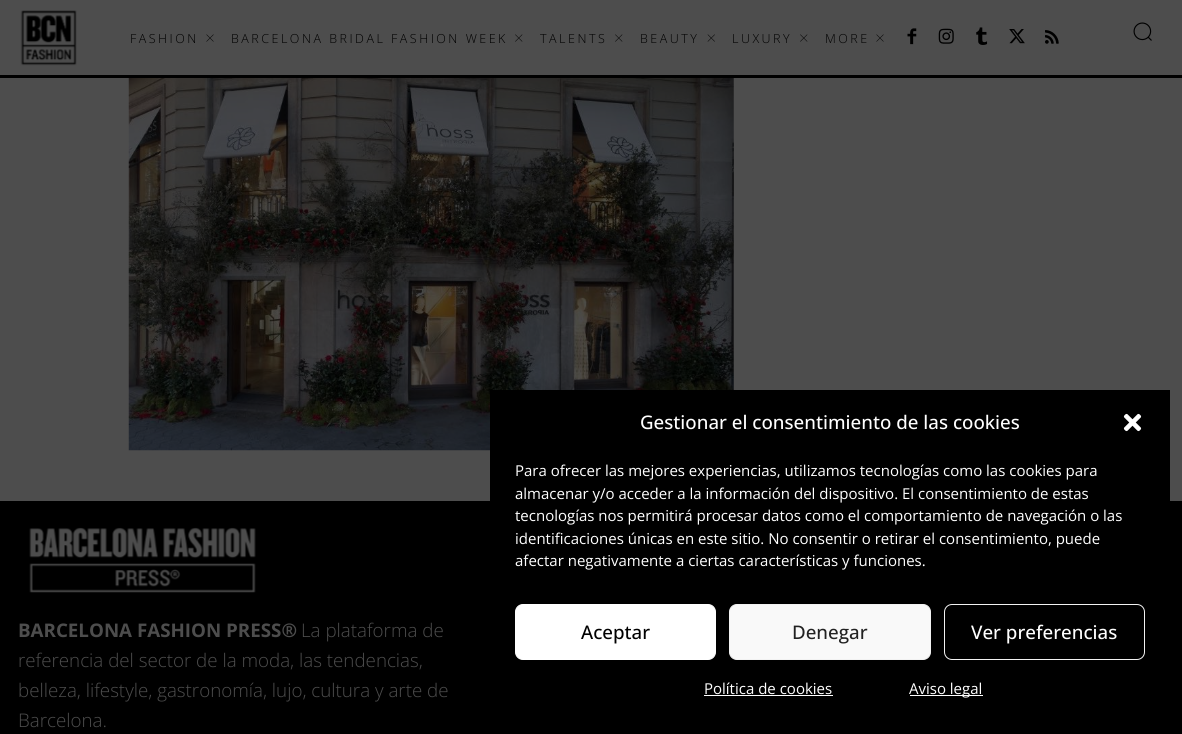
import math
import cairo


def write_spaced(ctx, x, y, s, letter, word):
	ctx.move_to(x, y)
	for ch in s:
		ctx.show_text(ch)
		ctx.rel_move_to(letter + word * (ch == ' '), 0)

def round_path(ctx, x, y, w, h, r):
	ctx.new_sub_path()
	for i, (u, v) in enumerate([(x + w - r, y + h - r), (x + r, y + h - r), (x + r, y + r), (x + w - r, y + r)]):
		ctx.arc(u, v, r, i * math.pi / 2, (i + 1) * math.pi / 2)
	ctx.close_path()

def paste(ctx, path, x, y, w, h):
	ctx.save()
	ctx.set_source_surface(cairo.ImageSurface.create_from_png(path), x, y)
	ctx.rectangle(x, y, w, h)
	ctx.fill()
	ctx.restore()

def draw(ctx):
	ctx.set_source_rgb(0.302, 0.302, 0.302)
	ctx.paint()
	ctx.set_source_rgb(0, 0, 0)
	ctx.rectangle(0, 75, 1182, 3)
	ctx.fill()
	paste(ctx, 'media/1.png', 20, 10, 57, 56)
	ctx.select_font_face('Open Sans Light')
	ctx.set_font_size(12.5)
	write_spaced(ctx, 130, 43, 'FASHION', 2.5, 0)
	paste(ctx, 'media/2.png', 206, 34, 8, 8)
	write_spaced(ctx, 231, 43, 'BARCELONA BRIDAL FASHION WEEK', 2.5, 0)
	paste(ctx, 'media/3.png', 515, 34, 8, 8)
	write_spaced(ctx, 540, 43, 'TALENTS', 2.5, 0)
	paste(ctx, 'media/3.png', 615, 34, 8, 8)
	write_spaced(ctx, 640, 43, 'BEAUTY', 2.5, 0)
	paste(ctx, 'media/4.png', 707, 34, 8, 8)
	write_spaced(ctx, 732, 43, 'LUXURY', 2.5, 0)
	paste(ctx, 'media/3.png', 800, 34, 8, 8)
	write_spaced(ctx, 825, 43, 'MORE', 2.5, 0)
	paste(ctx, 'media/2.png', 876, 34, 8, 8)
	paste(ctx, 'media/5.png', 907, 28, 10, 17)
	paste(ctx, 'media/6.png', 938, 28, 16, 16)
	paste(ctx, 'media/7.png', 976, 27, 12, 18)
	paste(ctx, 'media/8.png', 1009, 29, 16, 15)
	paste(ctx, 'media/9.png', 1045, 30, 14, 14)
	paste(ctx, 'media/10.png', 1133, 22, 19, 19)
	paste(ctx, 'media/11.png', 128, 78, 606, 373)
	ctx.rectangle(0, 501, 1182, 233)
	ctx.fill()
	paste(ctx, 'media/12.png', 29, 527, 227, 66)
	ctx.select_font_face('Open Sans', cairo.FONT_SLANT_NORMAL, cairo.FONT_WEIGHT_BOLD)
	ctx.set_font_size(18.75)
	ctx.set_source_rgb(0.302, 0.302, 0.302)
	ctx.move_to(18, 637)
	ctx.show_text('BARCELONA FASHION PRESS®')
	ctx.select_font_face('Open Sans Light')
	for x, y, s in [
		(301, 637, 'La plataforma de'),
		(18, 667, 'referencia del sector de la moda, las tendencias,'),
		(18, 697, 'belleza, lifestyle, gastronomía, lujo, cultura y arte de'),
		(18, 727, 'Barcelona.'),
	]:
		ctx.move_to(x, y)
		ctx.show_text(s)
	ctx.set_source_rgb(0, 0, 0)
	ctx.rectangle(490, 390, 680, 111)
	ctx.fill()
	ctx.select_font_face('Open Sans Medium')
	ctx.set_source_rgb(1, 1, 1)
	ctx.move_to(640, 429)
	ctx.show_text('Gestionar el consentimiento de las cookies')
	paste(ctx, 'media/13.png', 1123, 413, 19, 19)
	ctx.select_font_face('Open Sans')
	ctx.set_font_size(15)
	for x, y, s in [
		(515, 476, 'Para ofrecer las mejores experiencias, utilizamos tecnologías como las cookies para'),
		(515, 499, 'almacenar y/o acceder a la información del dispositivo. El consentimiento de estas'),
		(515, 521, 'tecnologías nos permitirá procesar datos como el comportamiento de navegación o las'),
		(515, 544, 'identificaciones únicas en este sitio. No consentir o retirar el consentimiento, puede'),
		(515, 566, 'afectar negativamente a ciertas características y funciones.'),
	]:
		ctx.move_to(x, y)
		ctx.show_text(s)
	round_path(ctx, 515.5, 604.5, 200, 55, 7.5)
	ctx.fill_preserve()
	ctx.set_line_width(1)
	ctx.stroke()
	ctx.select_font_face('Open Sans Medium')
	ctx.set_font_size(18.75)
	ctx.set_source_rgb(0, 0, 0)
	ctx.move_to(581, 639)
	ctx.show_text('Aceptar')
	ctx.set_source_rgb(0.976, 0.976, 0.976)
	round_path(ctx, 729.5, 604.5, 201, 55, 7.5)
	ctx.fill_preserve()
	ctx.set_source_rgb(0.949, 0.949, 0.949)
	ctx.stroke()
	ctx.set_source_rgb(0.133, 0.133, 0.133)
	ctx.move_to(792, 639)
	ctx.show_text('Denegar')
	round_path(ctx, 944.5, 604.5, 200, 55, 7.5)
	ctx.set_source_rgb(0.949, 0.949, 0.949)
	ctx.stroke()
	ctx.set_source_rgb(1, 1, 1)
	ctx.move_to(971, 639)
	ctx.show_text('Ver preferencias')
	ctx.select_font_face('Open Sans')
	ctx.set_font_size(15)
	ctx.move_to(704, 694)
	ctx.show_text('Política de cookies')
	ctx.rectangle(704, 695, 129, 1)
	ctx.fill()
	ctx.rectangle(910, 695, 73, 1)
	ctx.fill()
	ctx.move_to(909, 694)
	ctx.show_text('Aviso legal')


surface = cairo.ImageSurface(cairo.FORMAT_RGB24, 1182, 734)
ctx = cairo.Context(surface)
options = cairo.FontOptions()
options.set_hint_metrics(cairo.HINT_METRICS_OFF)
options.set_hint_style(cairo.HINT_STYLE_NONE)
ctx.set_font_options(options)
ctx.set_miter_limit(4)
draw(ctx)
surface.write_to_png('image.png')
